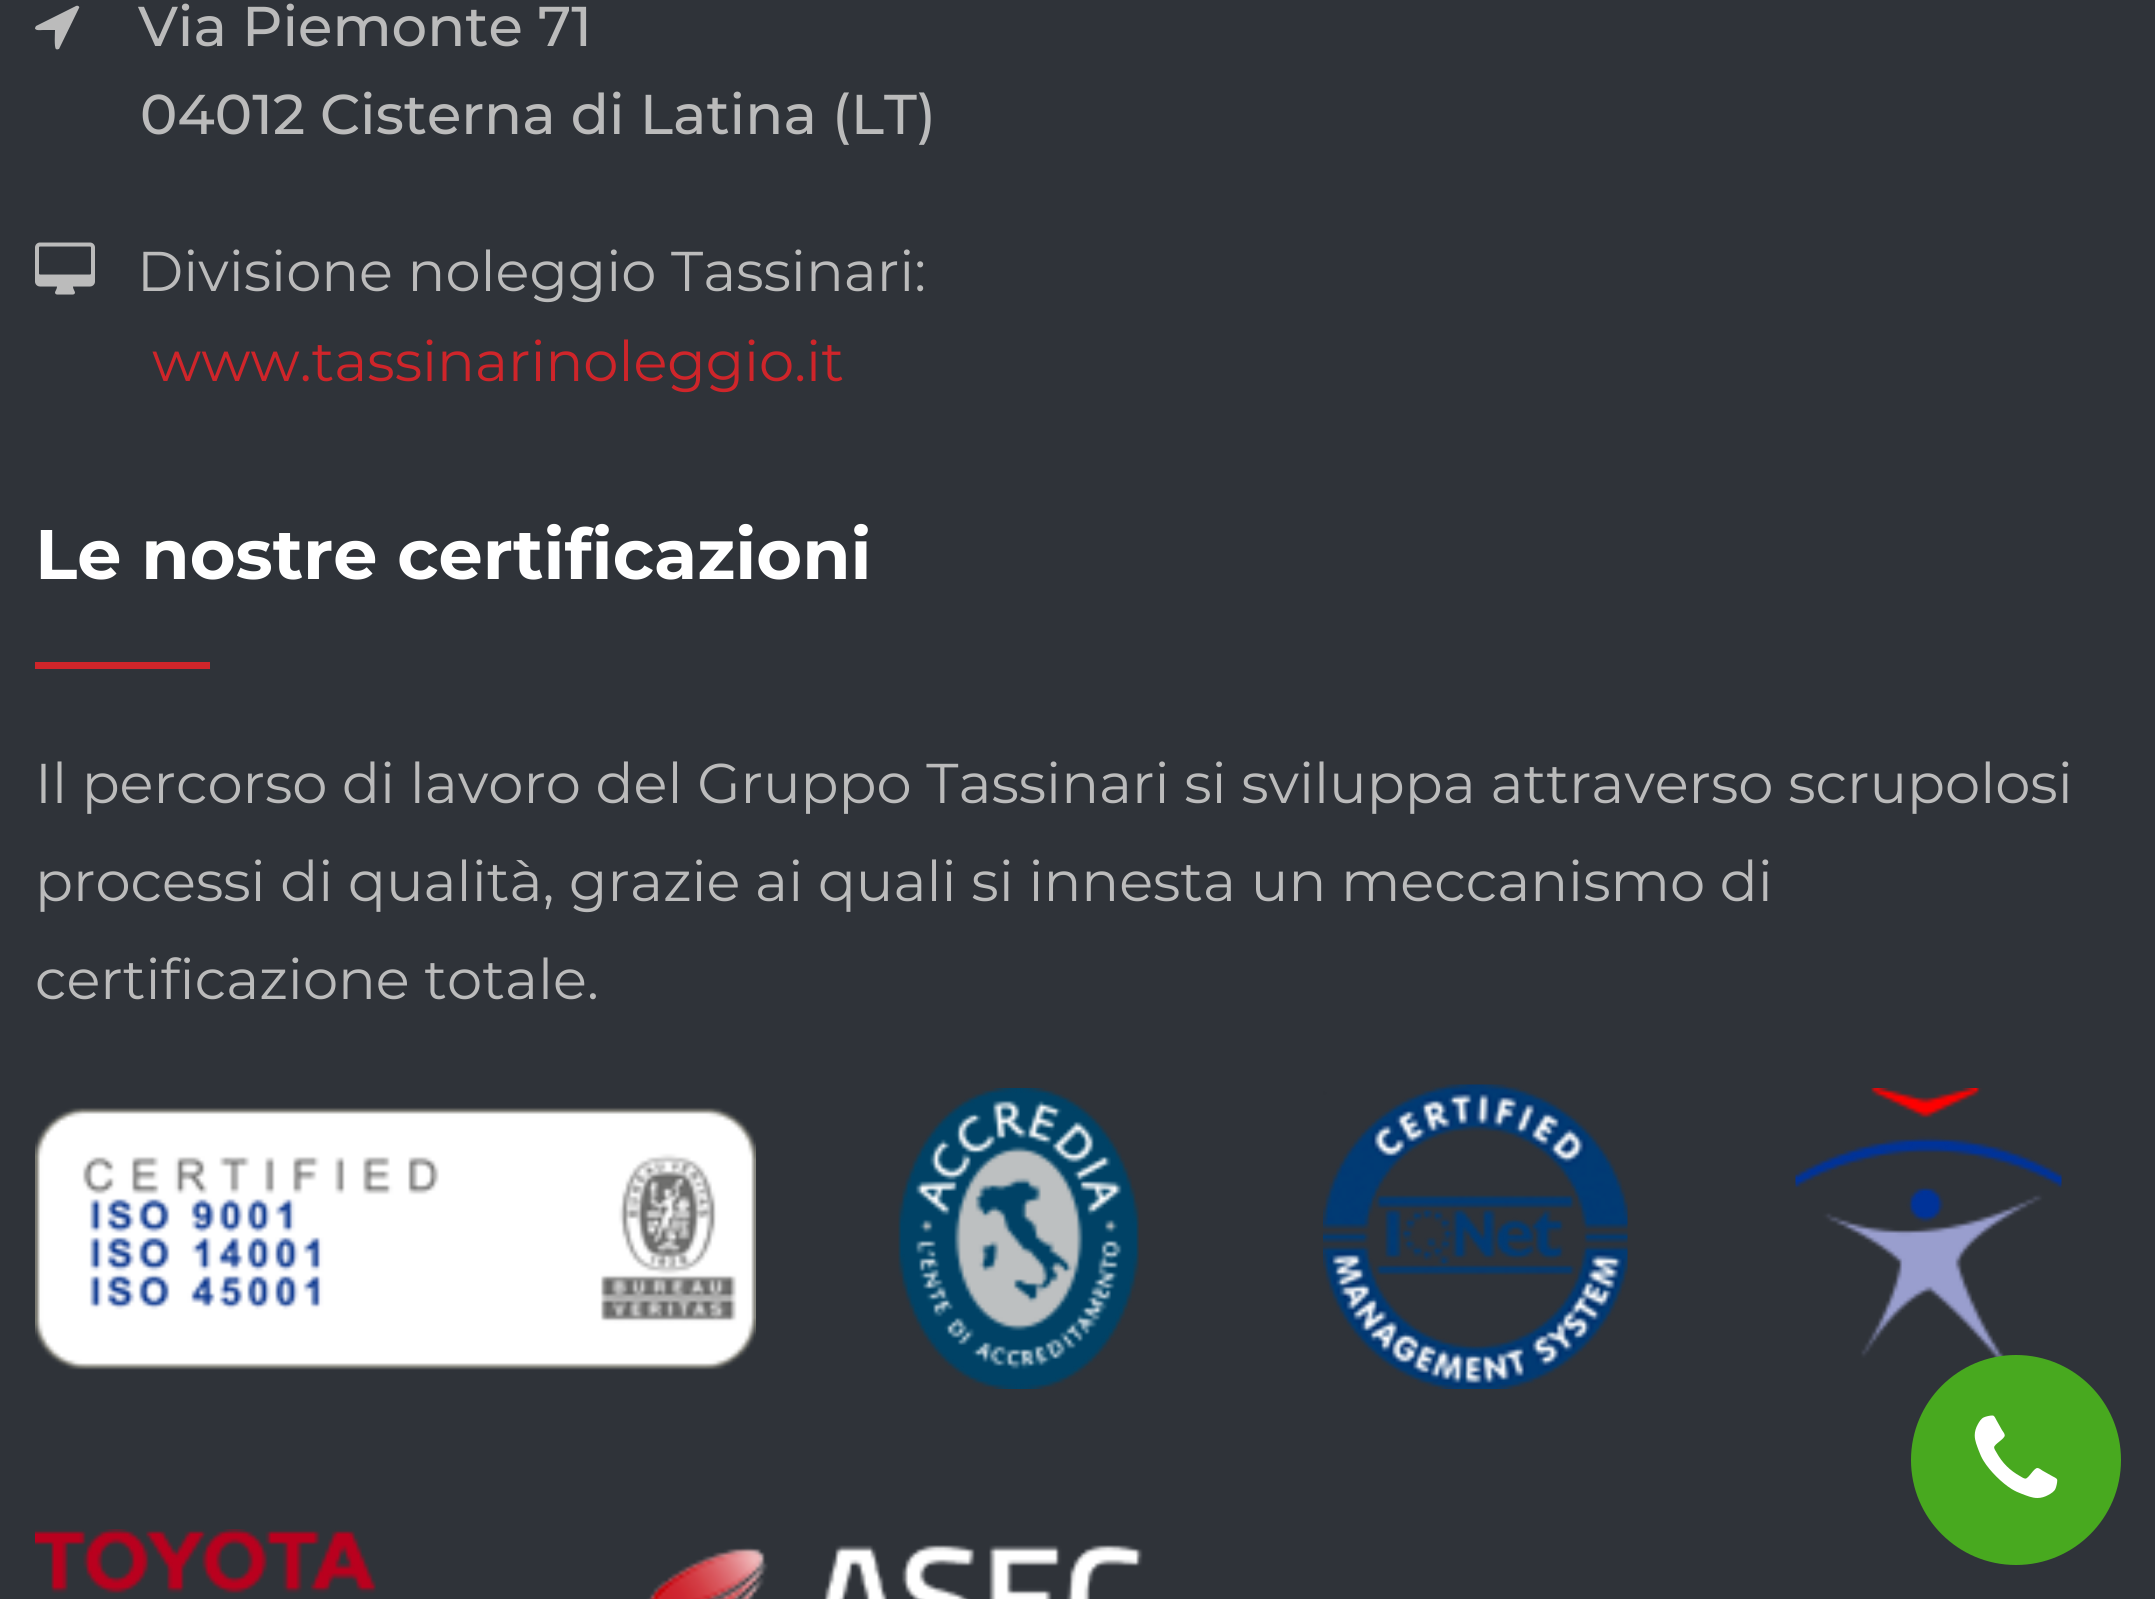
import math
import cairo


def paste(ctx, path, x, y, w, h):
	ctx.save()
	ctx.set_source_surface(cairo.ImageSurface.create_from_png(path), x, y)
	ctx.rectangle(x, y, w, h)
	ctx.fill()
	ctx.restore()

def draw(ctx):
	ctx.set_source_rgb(0.184, 0.2, 0.224)
	ctx.paint()
	ctx.set_source_rgb(0.733, 0.733, 0.733)
	ctx.new_path()
	ctx.move_to(79, 8)
	ctx.curve_to(80, 7, 78, 5, 76, 6)
	ctx.line_to(36, 26)
	ctx.line_to(35, 28)
	ctx.curve_to(35, 31, 41, 30, 43, 30)
	ctx.line_to(55, 30)
	ctx.curve_to(55, 32, 54, 48, 56, 49)
	ctx.curve_to(57, 50, 58, 49, 59, 49)
	ctx.close_path()
	ctx.fill()
	ctx.select_font_face('Montserrat Medium')
	ctx.set_font_size(56)
	ctx.move_to(138, 46)
	ctx.show_text('Via Piemonte 71')
	ctx.move_to(140, 134)
	ctx.show_text('04012 Cisterna di Latina (LT)')
	paste(ctx, 'media/1.png', 35, 242, 60, 53)
	ctx.select_font_face('Montserrat')
	ctx.move_to(137, 291)
	ctx.show_text('Divisione noleggio Tassinari:')
	ctx.set_source_rgb(0.812, 0.145, 0.165)
	ctx.move_to(152, 381)
	ctx.show_text('www.tassinarinoleggio.it')
	ctx.select_font_face('Montserrat', cairo.FONT_SLANT_NORMAL, cairo.FONT_WEIGHT_BOLD)
	ctx.set_font_size(70)
	ctx.set_source_rgb(1, 1, 1)
	ctx.move_to(35, 579)
	ctx.show_text('Le nostre certificazioni')
	ctx.set_source_rgb(0.812, 0.145, 0.165)
	ctx.rectangle(35, 662, 175, 7)
	ctx.fill()
	ctx.select_font_face('Montserrat')
	ctx.set_font_size(56)
	ctx.set_source_rgb(0.733, 0.733, 0.733)
	for x, y, s in [
		(35, 803, 'Il percorso di lavoro del Gruppo Tassinari si sviluppa attraverso scrupolosi'),
		(35, 901, 'processi di qualità, grazie ai quali si innesta un meccanismo di'),
		(35, 999, 'certificazione totale.'),
	]:
		ctx.move_to(x, y)
		ctx.show_text(s)
	paste(ctx, 'media/2.png', 35, 1107, 721, 263)
	paste(ctx, 'media/3.png', 898, 1088, 241, 301)
	paste(ctx, 'media/4.png', 1323, 1084, 305, 305)
	paste(ctx, 'media/5.png', 1795, 1088, 267, 270)
	paste(ctx, 'media/6.png', 35, 1529, 1108, 70)
	ctx.set_source_rgb(0.282, 0.663, 0.122)
	ctx.arc(2016, 1460, 105, 0, 2 * math.pi)
	ctx.fill()
	paste(ctx, 'media/7.png', 1974, 1415, 84, 83)


surface = cairo.ImageSurface(cairo.FORMAT_RGB24, 2155, 1599)
ctx = cairo.Context(surface)
options = cairo.FontOptions()
options.set_hint_metrics(cairo.HINT_METRICS_OFF)
options.set_hint_style(cairo.HINT_STYLE_NONE)
ctx.set_font_options(options)
ctx.set_miter_limit(4)
draw(ctx)
surface.write_to_png('image.png')
